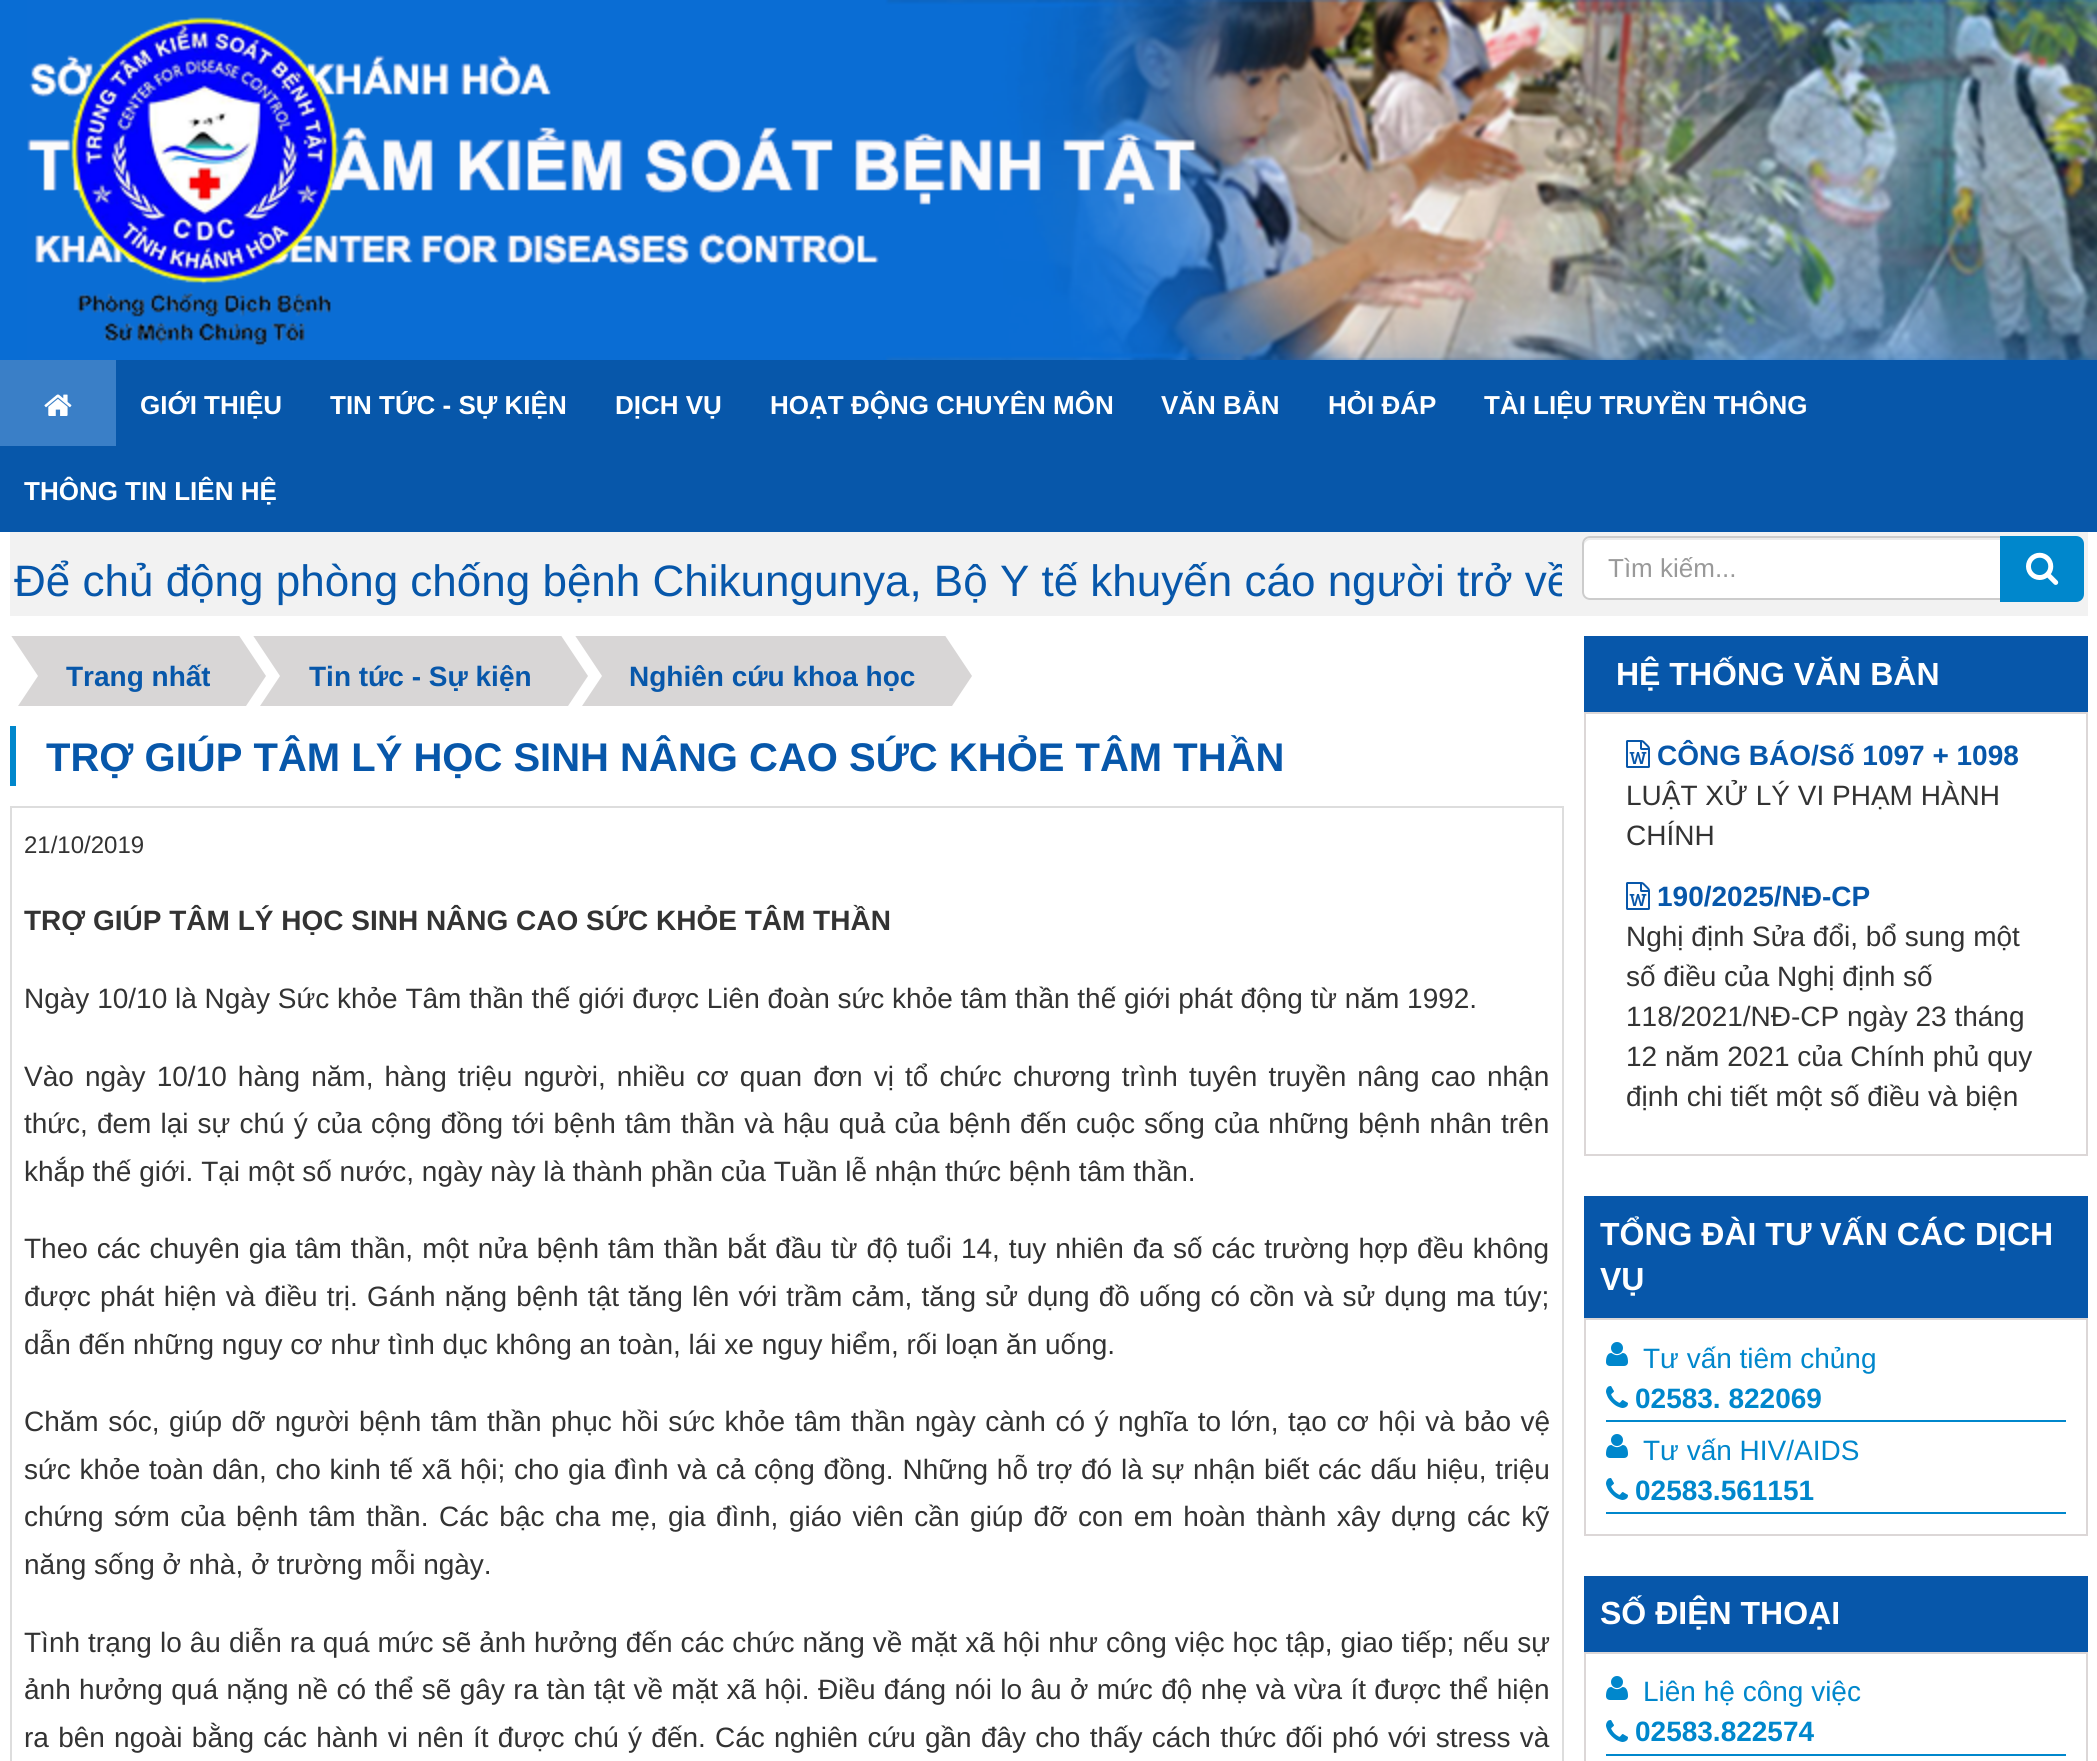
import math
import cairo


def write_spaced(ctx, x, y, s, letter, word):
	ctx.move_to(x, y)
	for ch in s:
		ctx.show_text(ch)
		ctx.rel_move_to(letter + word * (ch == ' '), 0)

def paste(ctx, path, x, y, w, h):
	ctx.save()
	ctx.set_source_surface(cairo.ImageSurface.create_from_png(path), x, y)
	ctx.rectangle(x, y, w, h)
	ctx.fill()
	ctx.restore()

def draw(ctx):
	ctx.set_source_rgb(1, 1, 1)
	ctx.paint()
	ctx.set_source_rgb(0.039, 0.427, 0.831)
	ctx.rectangle(0, 0, 27, 360)
	ctx.fill()
	paste(ctx, 'media/1.png', 27, 0, 2070, 360)
	paste(ctx, 'media/2.png', 71, 17, 268, 330)
	ctx.set_source_rgb(0.031, 0.341, 0.667)
	ctx.rectangle(0, 360, 2097, 172)
	ctx.fill()
	ctx.set_source_rgb(0.227, 0.498, 0.78)
	ctx.rectangle(0, 360, 116, 86)
	ctx.fill()
	paste(ctx, 'media/3.png', 44, 394, 28, 22)
	ctx.select_font_face('Liberation Sans', cairo.FONT_SLANT_NORMAL, cairo.FONT_WEIGHT_BOLD)
	ctx.set_font_size(26)
	ctx.set_source_rgb(1, 1, 1)
	for x, y, s in [
		(140, 414, 'GIỚI THIỆU'),
		(330, 414, 'TIN TỨC - SỰ KIỆN'),
		(615, 414, 'DỊCH VỤ'),
		(770, 414, 'HOẠT ĐỘNG CHUYÊN MÔN'),
		(1161, 414, 'VĂN BẢN'),
		(1328, 414, 'HỎI ĐÁP'),
		(1484, 414, 'TÀI LIỆU TRUYỀN THÔNG'),
		(24, 500, 'THÔNG TIN LIÊN HỆ'),
	]:
		ctx.move_to(x, y)
		ctx.show_text(s)
	ctx.set_source_rgb(0.949, 0.949, 0.949)
	ctx.rectangle(10, 532, 2078, 84)
	ctx.fill()
	ctx.save()
	ctx.rectangle(14, 536, 1548, 76)
	ctx.clip()
	ctx.select_font_face('Liberation Sans')
	ctx.set_font_size(44)
	ctx.set_source_rgb(0.031, 0.341, 0.667)
	ctx.move_to(14, 596)
	ctx.show_text('Để chủ động phòng chống bệnh Chikungunya, Bộ Y tế khuyến cáo người trở về')
	ctx.restore()
	ctx.set_source_rgb(1, 1, 1)
	ctx.new_path()
	ctx.move_to(1590, 536)
	ctx.line_to(2002, 536)
	ctx.line_to(2002, 600)
	ctx.line_to(1590, 600)
	ctx.curve_to(1585.5, 600, 1582, 596.5, 1582, 592)
	ctx.line_to(1582, 544)
	ctx.curve_to(1582, 539.5, 1585.5, 536, 1590, 536)
	ctx.close_path()
	ctx.fill()
	ctx.set_source_rgb(0.925, 0.925, 0.925)
	ctx.new_path()
	ctx.move_to(1590, 540)
	ctx.line_to(2000, 540)
	ctx.line_to(2000, 538)
	ctx.line_to(1590, 538)
	ctx.curve_to(1587, 538, 1584, 541, 1584, 544)
	ctx.line_to(1584, 546)
	ctx.curve_to(1584, 543, 1587, 540, 1590, 540)
	ctx.close_path()
	ctx.fill()
	ctx.new_path()
	ctx.move_to(1590, 537)
	ctx.line_to(2001, 537)
	ctx.line_to(2001, 599)
	ctx.line_to(1590, 599)
	ctx.curve_to(1586, 599, 1583, 596, 1583, 592)
	ctx.line_to(1583, 544)
	ctx.curve_to(1583, 540, 1586, 537, 1590, 537)
	ctx.close_path()
	ctx.set_source_rgb(0.8, 0.8, 0.8)
	ctx.stroke()
	ctx.select_font_face('Liberation Sans')
	ctx.set_source_rgb(0.6, 0.6, 0.6)
	ctx.move_to(1608, 577)
	ctx.show_text('Tìm kiếm...')
	ctx.set_source_rgb(0, 0.529, 0.8)
	ctx.new_path()
	ctx.move_to(2001, 537)
	ctx.line_to(2076, 537)
	ctx.curve_to(2080, 537, 2083, 540, 2083, 544)
	ctx.line_to(2083, 594)
	ctx.curve_to(2083, 598, 2080, 601, 2076, 601)
	ctx.line_to(2001, 601)
	ctx.close_path()
	ctx.fill_preserve()
	ctx.stroke()
	paste(ctx, 'media/4.png', 2026, 552, 33, 33)
	ctx.set_source_rgb(0.847, 0.839, 0.839)
	ctx.rectangle(38, 636, 200, 70)
	ctx.fill()
	ctx.save()
	ctx.rectangle(10, 636, 1554, 70)
	ctx.clip()
	ctx.new_path()
	ctx.move_to(10, 634)
	ctx.line_to(38, 634)
	ctx.line_to(38, 676)
	ctx.close_path()
	ctx.fill()
	ctx.new_path()
	ctx.move_to(38, 718)
	ctx.line_to(10, 718)
	ctx.line_to(38, 676)
	ctx.close_path()
	ctx.fill()
	ctx.restore()
	ctx.select_font_face('Liberation Sans', cairo.FONT_SLANT_NORMAL, cairo.FONT_WEIGHT_BOLD)
	ctx.set_font_size(28)
	ctx.set_source_rgb(0.031, 0.341, 0.667)
	ctx.move_to(66, 686)
	ctx.show_text('Trang nhất')
	ctx.save()
	ctx.rectangle(10, 636, 1554, 70)
	ctx.clip()
	ctx.set_source_rgb(0.847, 0.839, 0.839)
	ctx.new_path()
	ctx.move_to(238, 718)
	ctx.line_to(238, 634)
	ctx.line_to(266, 676)
	ctx.close_path()
	ctx.fill()
	ctx.restore()
	ctx.set_source_rgb(0.847, 0.839, 0.839)
	ctx.rectangle(280, 636, 280, 70)
	ctx.fill()
	ctx.save()
	ctx.rectangle(10, 636, 1554, 70)
	ctx.clip()
	ctx.new_path()
	ctx.move_to(252, 634)
	ctx.line_to(280, 634)
	ctx.line_to(280, 676)
	ctx.close_path()
	ctx.fill()
	ctx.new_path()
	ctx.move_to(280, 718)
	ctx.line_to(252, 718)
	ctx.line_to(280, 676)
	ctx.close_path()
	ctx.fill()
	ctx.restore()
	ctx.set_source_rgb(0.031, 0.341, 0.667)
	ctx.move_to(309, 686)
	ctx.show_text('Tin tức - Sự kiện')
	ctx.save()
	ctx.rectangle(10, 636, 1554, 70)
	ctx.clip()
	ctx.set_source_rgb(0.847, 0.839, 0.839)
	ctx.new_path()
	ctx.move_to(560, 718)
	ctx.line_to(560, 634)
	ctx.line_to(588, 676)
	ctx.close_path()
	ctx.fill()
	ctx.restore()
	ctx.set_source_rgb(0.847, 0.839, 0.839)
	ctx.rectangle(602, 636, 342, 70)
	ctx.fill()
	ctx.save()
	ctx.rectangle(10, 636, 1554, 70)
	ctx.clip()
	ctx.new_path()
	ctx.move_to(574, 634)
	ctx.line_to(602, 634)
	ctx.line_to(602, 676)
	ctx.close_path()
	ctx.fill()
	ctx.new_path()
	ctx.move_to(602, 718)
	ctx.line_to(574, 718)
	ctx.line_to(602, 676)
	ctx.close_path()
	ctx.fill()
	ctx.restore()
	ctx.set_source_rgb(0.031, 0.341, 0.667)
	ctx.move_to(629, 686)
	ctx.show_text('Nghiên cứu khoa học')
	ctx.save()
	ctx.rectangle(10, 636, 1554, 70)
	ctx.clip()
	ctx.set_source_rgb(0.847, 0.839, 0.839)
	ctx.new_path()
	ctx.move_to(944, 718)
	ctx.line_to(944, 634)
	ctx.line_to(972, 676)
	ctx.close_path()
	ctx.fill()
	ctx.restore()
	ctx.set_source_rgb(0, 0.529, 0.8)
	ctx.rectangle(10, 726, 6, 60)
	ctx.fill()
	ctx.set_font_size(40)
	ctx.set_source_rgb(0.031, 0.341, 0.667)
	ctx.move_to(46, 771)
	ctx.show_text('TRỢ GIÚP TÂM LÝ HỌC SINH NÂNG CAO SỨC KHỎE TÂM THẦN')
	ctx.rectangle(11, 807, 1552, 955)
	ctx.set_source_rgb(0.867, 0.867, 0.867)
	ctx.stroke()
	ctx.select_font_face('Liberation Sans')
	ctx.set_font_size(24)
	ctx.set_source_rgb(0.2, 0.2, 0.2)
	ctx.move_to(24, 853)
	ctx.show_text('21/10/2019')
	ctx.select_font_face('Liberation Sans', cairo.FONT_SLANT_NORMAL, cairo.FONT_WEIGHT_BOLD)
	ctx.set_font_size(28)
	ctx.move_to(24, 930)
	ctx.show_text('TRỢ GIÚP TÂM LÝ HỌC SINH NÂNG CAO SỨC KHỎE TÂM THẦN')
	ctx.select_font_face('Liberation Sans')
	ctx.move_to(24, 1008)
	ctx.show_text('Ngày 10/10 là Ngày Sức khỏe Tâm thần thế giới được Liên đoàn sức khỏe tâm thần thế giới phát động từ năm 1992.')
	write_spaced(ctx, 24, 1086, 'Vào ngày 10/10 hàng năm, hàng triệu người, nhiều cơ quan đơn vị tổ chức chương trình tuyên truyền nâng cao nhận', 0, 3.3)
	write_spaced(ctx, 24, 1133, 'thức, đem lại sự chú ý của cộng đồng tới bệnh tâm thần và hậu quả của bệnh đến cuộc sống của những bệnh nhân trên', 0, 1.3)
	ctx.move_to(24, 1181)
	ctx.show_text('khắp thế giới. Tại một số nước, ngày này là thành phần của Tuần lễ nhận thức bệnh tâm thần.')
	write_spaced(ctx, 24, 1258, 'Theo các chuyên gia tâm thần, một nửa bệnh tâm thần bắt đầu từ độ tuổi 14, tuy nhiên đa số các trường hợp đều không', 0, 1.25)
	write_spaced(ctx, 24, 1306, 'được phát hiện và điều trị. Gánh nặng bệnh tật tăng lên với trầm cảm, tăng sử dụng đồ uống có cồn và sử dụng ma túy;', 0, 1.45)
	ctx.move_to(24, 1354)
	ctx.show_text('dẫn đến những nguy cơ như tình dục không an toàn, lái xe nguy hiểm, rối loạn ăn uống.')
	write_spaced(ctx, 24, 1431, 'Chăm sóc, giúp dỡ người bệnh tâm thần phục hồi sức khỏe tâm thần ngày cành có ý nghĩa to lớn, tạo cơ hội và bảo vệ', 0, 1.75)
	write_spaced(ctx, 24, 1479, 'sức khỏe toàn dân, cho kinh tế xã hội; cho gia đình và cả cộng đồng. Những hỗ trợ đó là sự nhận biết các dấu hiệu, triệu', 0, 1)
	write_spaced(ctx, 24, 1526, 'chứng sớm của bệnh tâm thần. Các bậc cha mẹ, gia đình, giáo viên cần giúp đỡ con em hoàn thành xây dựng các kỹ', 0, 2.8)
	ctx.move_to(24, 1574)
	ctx.show_text('năng sống ở nhà, ở trường mỗi ngày.')
	write_spaced(ctx, 24, 1652, 'Tình trạng lo âu diễn ra quá mức sẽ ảnh hưởng đến các chức năng về mặt xã hội như công việc học tập, giao tiếp; nếu sự', 0, 0.25)
	write_spaced(ctx, 24, 1699, 'ảnh hưởng quá nặng nề có thể sẽ gây ra tàn tật về mặt xã hội. Điều đáng nói lo âu ở mức độ nhẹ và vừa ít được thể hiện', 0, 0.6)
	write_spaced(ctx, 24, 1747, 'ra bên ngoài bằng các hành vi nên ít được chú ý đến. Các nghiên cứu gần đây cho thấy cách thức đối phó với stress và', 0, 1.45)
	ctx.set_source_rgb(0.031, 0.341, 0.667)
	ctx.rectangle(1584, 636, 504, 76)
	ctx.fill()
	ctx.select_font_face('Liberation Sans', cairo.FONT_SLANT_NORMAL, cairo.FONT_WEIGHT_BOLD)
	ctx.set_font_size(32)
	ctx.set_source_rgb(1, 1, 1)
	ctx.move_to(1616, 685)
	ctx.show_text('HỆ THỐNG VĂN BẢN')
	ctx.rectangle(1585, 713, 502, 442)
	ctx.set_source_rgb(0.863, 0.843, 0.843)
	ctx.stroke()
	paste(ctx, 'media/5.png', 1626, 740, 24, 28)
	ctx.set_font_size(28)
	ctx.set_source_rgb(0.031, 0.341, 0.667)
	ctx.move_to(1657, 765)
	ctx.show_text('CÔNG BÁO/Số 1097 + 1098')
	ctx.select_font_face('Liberation Sans')
	ctx.set_source_rgb(0.2, 0.2, 0.2)
	ctx.move_to(1626, 805)
	ctx.show_text('LUẬT XỬ LÝ VI PHẠM HÀNH')
	ctx.move_to(1626, 845)
	ctx.show_text('CHÍNH')
	paste(ctx, 'media/5.png', 1626, 882, 24, 28)
	ctx.select_font_face('Liberation Sans', cairo.FONT_SLANT_NORMAL, cairo.FONT_WEIGHT_BOLD)
	ctx.set_source_rgb(0.031, 0.341, 0.667)
	ctx.move_to(1657, 906)
	ctx.show_text('190/2025/NĐ-CP')
	ctx.select_font_face('Liberation Sans')
	ctx.set_source_rgb(0.2, 0.2, 0.2)
	for x, y, s in [
		(1626, 946, 'Nghị định Sửa đổi, bổ sung một'),
		(1626, 986, 'số điều của Nghị định số'),
		(1626, 1026, '118/2021/NĐ-CP ngày 23 tháng'),
		(1626, 1066, '12 năm 2021 của Chính phủ quy'),
		(1626, 1106, 'định chi tiết một số điều và biện'),
	]:
		ctx.move_to(x, y)
		ctx.show_text(s)
	ctx.set_source_rgb(0.031, 0.341, 0.667)
	ctx.rectangle(1584, 1196, 504, 122)
	ctx.fill()
	ctx.select_font_face('Liberation Sans', cairo.FONT_SLANT_NORMAL, cairo.FONT_WEIGHT_BOLD)
	ctx.set_font_size(32)
	ctx.set_source_rgb(1, 1, 1)
	ctx.move_to(1600, 1245)
	ctx.show_text('TỔNG ĐÀI TƯ VẤN CÁC DỊCH')
	ctx.move_to(1600, 1290)
	ctx.show_text('VỤ')
	ctx.rectangle(1585, 1319, 502, 216)
	ctx.set_source_rgb(0.863, 0.843, 0.843)
	ctx.stroke()
	ctx.set_source_rgb(0, 0.529, 0.8)
	ctx.rectangle(1606, 1420, 460, 2)
	ctx.fill()
	paste(ctx, 'media/6.png', 1606, 1342, 22, 24)
	ctx.select_font_face('Liberation Sans')
	ctx.set_font_size(28)
	ctx.move_to(1643, 1368)
	ctx.show_text('Tư vấn tiêm chủng')
	paste(ctx, 'media/7.png', 1606, 1386, 22, 22)
	ctx.select_font_face('Liberation Sans', cairo.FONT_SLANT_NORMAL, cairo.FONT_WEIGHT_BOLD)
	ctx.move_to(1635, 1408)
	ctx.show_text('02583. 822069')
	ctx.rectangle(1606, 1512, 460, 2)
	ctx.fill()
	paste(ctx, 'media/6.png', 1606, 1434, 22, 24)
	ctx.select_font_face('Liberation Sans')
	ctx.move_to(1643, 1460)
	ctx.show_text('Tư vấn HIV/AIDS')
	paste(ctx, 'media/7.png', 1606, 1478, 22, 22)
	ctx.select_font_face('Liberation Sans', cairo.FONT_SLANT_NORMAL, cairo.FONT_WEIGHT_BOLD)
	ctx.move_to(1635, 1500)
	ctx.show_text('02583.561151')
	ctx.set_source_rgb(0.031, 0.341, 0.667)
	ctx.rectangle(1584, 1576, 504, 76)
	ctx.fill()
	ctx.set_font_size(32)
	ctx.set_source_rgb(1, 1, 1)
	ctx.move_to(1600, 1624)
	ctx.show_text('SỐ ĐIỆN THOẠI')
	ctx.rectangle(1585, 1653, 502, 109)
	ctx.set_source_rgb(0.863, 0.843, 0.843)
	ctx.stroke()
	ctx.set_source_rgb(0, 0.529, 0.8)
	ctx.rectangle(1606, 1754, 460, 2)
	ctx.fill()
	paste(ctx, 'media/6.png', 1606, 1676, 22, 24)
	ctx.select_font_face('Liberation Sans')
	ctx.set_font_size(28)
	ctx.move_to(1643, 1701)
	ctx.show_text('Liên hệ công việc')
	paste(ctx, 'media/7.png', 1606, 1720, 22, 22)
	ctx.select_font_face('Liberation Sans', cairo.FONT_SLANT_NORMAL, cairo.FONT_WEIGHT_BOLD)
	ctx.move_to(1635, 1741)
	ctx.show_text('02583.822574')


surface = cairo.ImageSurface(cairo.FORMAT_RGB24, 2097, 1761)
ctx = cairo.Context(surface)
options = cairo.FontOptions()
options.set_hint_metrics(cairo.HINT_METRICS_OFF)
options.set_hint_style(cairo.HINT_STYLE_NONE)
ctx.set_font_options(options)
ctx.set_miter_limit(4)
draw(ctx)
surface.write_to_png('image.png')
